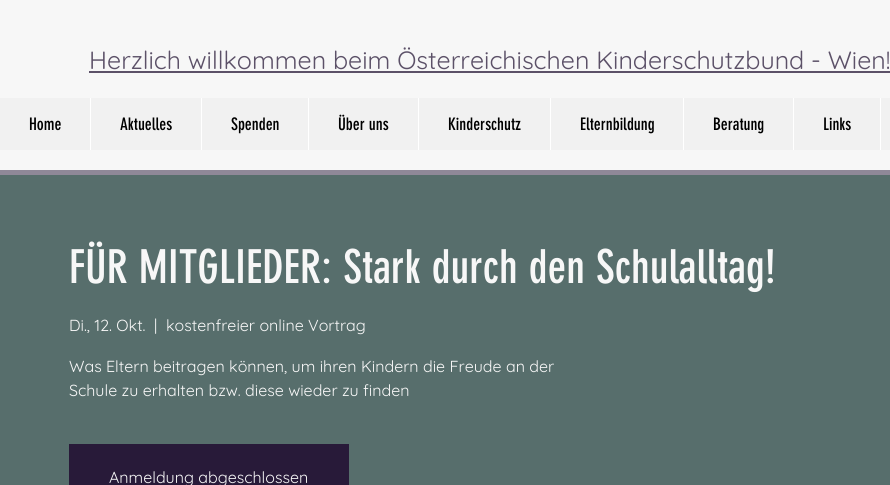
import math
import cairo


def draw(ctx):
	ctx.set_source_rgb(0.965, 0.965, 0.965)
	ctx.paint()
	ctx.select_font_face('Quicksand')
	ctx.set_font_size(25)
	ctx.set_source_rgb(0.361, 0.318, 0.408)
	ctx.move_to(89, 69)
	ctx.show_text('Herzlich willkommen beim Österreichischen Kinderschutzbund - Wien!')
	ctx.rectangle(89, 71, 801, 2)
	ctx.fill()
	ctx.set_source_rgb(0.945, 0.945, 0.945)
	ctx.rectangle(0, 98, 890, 52)
	ctx.fill()
	ctx.select_font_face('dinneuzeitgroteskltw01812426')
	ctx.set_font_size(17)
	ctx.set_source_rgb(0, 0, 0)
	ctx.move_to(29, 130)
	ctx.show_text('Home')
	ctx.set_source_rgb(1, 1, 1)
	ctx.rectangle(90, 98, 1, 52)
	ctx.fill()
	ctx.set_source_rgb(0, 0, 0)
	ctx.move_to(120, 130)
	ctx.show_text('Aktuelles')
	ctx.set_source_rgb(1, 1, 1)
	ctx.rectangle(201, 98, 1, 52)
	ctx.fill()
	ctx.set_source_rgb(0, 0, 0)
	ctx.move_to(231, 130)
	ctx.show_text('Spenden')
	ctx.set_source_rgb(1, 1, 1)
	ctx.rectangle(308, 98, 1, 52)
	ctx.fill()
	ctx.set_source_rgb(0, 0, 0)
	ctx.move_to(338, 130)
	ctx.show_text('Über uns')
	ctx.set_source_rgb(1, 1, 1)
	ctx.rectangle(418, 98, 1, 52)
	ctx.fill()
	ctx.set_source_rgb(0, 0, 0)
	ctx.move_to(448, 130)
	ctx.show_text('Kinderschutz')
	ctx.set_source_rgb(1, 1, 1)
	ctx.rectangle(550, 98, 1, 52)
	ctx.fill()
	ctx.set_source_rgb(0, 0, 0)
	ctx.move_to(580, 130)
	ctx.show_text('Elternbildung')
	ctx.set_source_rgb(1, 1, 1)
	ctx.rectangle(683, 98, 1, 52)
	ctx.fill()
	ctx.set_source_rgb(0, 0, 0)
	ctx.move_to(713, 130)
	ctx.show_text('Beratung')
	ctx.set_source_rgb(1, 1, 1)
	ctx.rectangle(793, 98, 1, 52)
	ctx.fill()
	ctx.set_source_rgb(0, 0, 0)
	ctx.move_to(823, 130)
	ctx.show_text('Links')
	ctx.set_source_rgb(1, 1, 1)
	ctx.rectangle(880, 98, 1, 52)
	ctx.fill()
	ctx.set_source_rgb(0.561, 0.533, 0.596)
	ctx.rectangle(0, 170, 890, 5)
	ctx.fill()
	ctx.set_source_rgb(0.341, 0.431, 0.424)
	ctx.rectangle(0, 175, 890, 310)
	ctx.fill()
	ctx.set_font_size(46)
	ctx.set_source_rgb(0.965, 0.965, 0.965)
	ctx.move_to(69, 283)
	ctx.show_text('FÜR MITGLIEDER: Stark durch den Schulalltag!')
	ctx.select_font_face('Quicksand')
	ctx.set_font_size(16)
	for x, y, s in [
		(69, 331, 'Di., 12. Okt.'),
		(154, 331, '|'),
		(166, 331, 'kostenfreier online Vortrag'),
		(69, 372, 'Was Eltern beitragen können, um ihren Kindern die Freude an der'),
		(69, 396, 'Schule zu erhalten bzw. diese wieder zu finden'),
	]:
		ctx.move_to(x, y)
		ctx.show_text(s)
	ctx.set_source_rgb(0.157, 0.102, 0.224)
	ctx.rectangle(69, 444, 280, 41)
	ctx.fill()
	ctx.set_source_rgb(0.965, 0.965, 0.965)
	ctx.move_to(109, 483)
	ctx.show_text('Anmeldung abgeschlossen')


surface = cairo.ImageSurface(cairo.FORMAT_RGB24, 890, 485)
ctx = cairo.Context(surface)
options = cairo.FontOptions()
options.set_hint_metrics(cairo.HINT_METRICS_OFF)
options.set_hint_style(cairo.HINT_STYLE_NONE)
ctx.set_font_options(options)
ctx.set_miter_limit(4)
draw(ctx)
surface.write_to_png('image.png')
